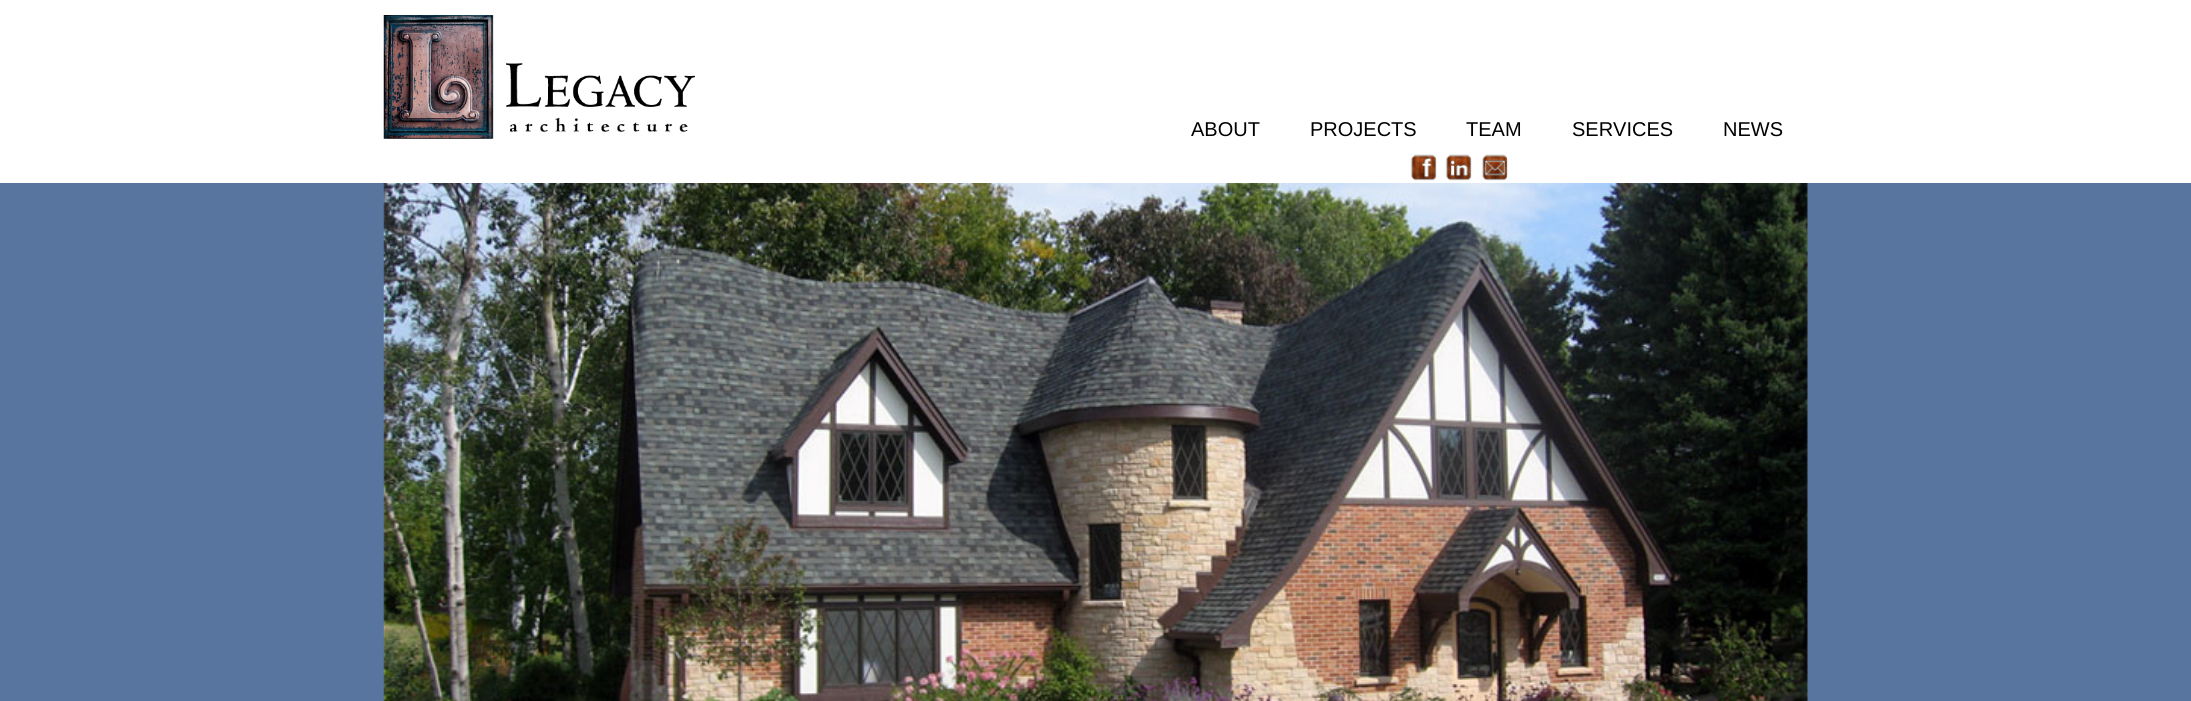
import math
import cairo


def paste(ctx, path, x, y, w, h):
	ctx.save()
	ctx.set_source_surface(cairo.ImageSurface.create_from_png(path), x, y)
	ctx.rectangle(x, y, w, h)
	ctx.fill()
	ctx.restore()

def draw(ctx):
	ctx.set_source_rgb(1, 1, 1)
	ctx.paint()
	ctx.set_source_rgb(0.345, 0.459, 0.624)
	ctx.rectangle(0, 183, 2191, 518)
	ctx.fill()
	paste(ctx, 'media/5.png', 383, 182, 1425, 519)
	ctx.set_source_rgb(1, 1, 1)
	ctx.rectangle(384, 182, 1424, 1)
	ctx.fill()
	paste(ctx, 'media/1.png', 383, 15, 312, 124)
	ctx.select_font_face('Liberation Sans')
	ctx.set_font_size(20)
	ctx.set_source_rgb(0, 0, 0)
	for x, y, s in [
		(1191, 136, 'ABOUT'),
		(1310, 136, 'PROJECTS'),
		(1466, 136, 'TEAM'),
		(1572, 136, 'SERVICES'),
		(1723, 136, 'NEWS'),
	]:
		ctx.move_to(x, y)
		ctx.show_text(s)
	paste(ctx, 'media/2.png', 1410, 154, 27, 27)
	paste(ctx, 'media/3.png', 1445, 154, 27, 27)
	paste(ctx, 'media/4.png', 1482, 154, 26, 27)


surface = cairo.ImageSurface(cairo.FORMAT_RGB24, 2191, 701)
ctx = cairo.Context(surface)
options = cairo.FontOptions()
options.set_hint_metrics(cairo.HINT_METRICS_OFF)
options.set_hint_style(cairo.HINT_STYLE_NONE)
ctx.set_font_options(options)
ctx.set_miter_limit(4)
draw(ctx)
surface.write_to_png('image.png')
